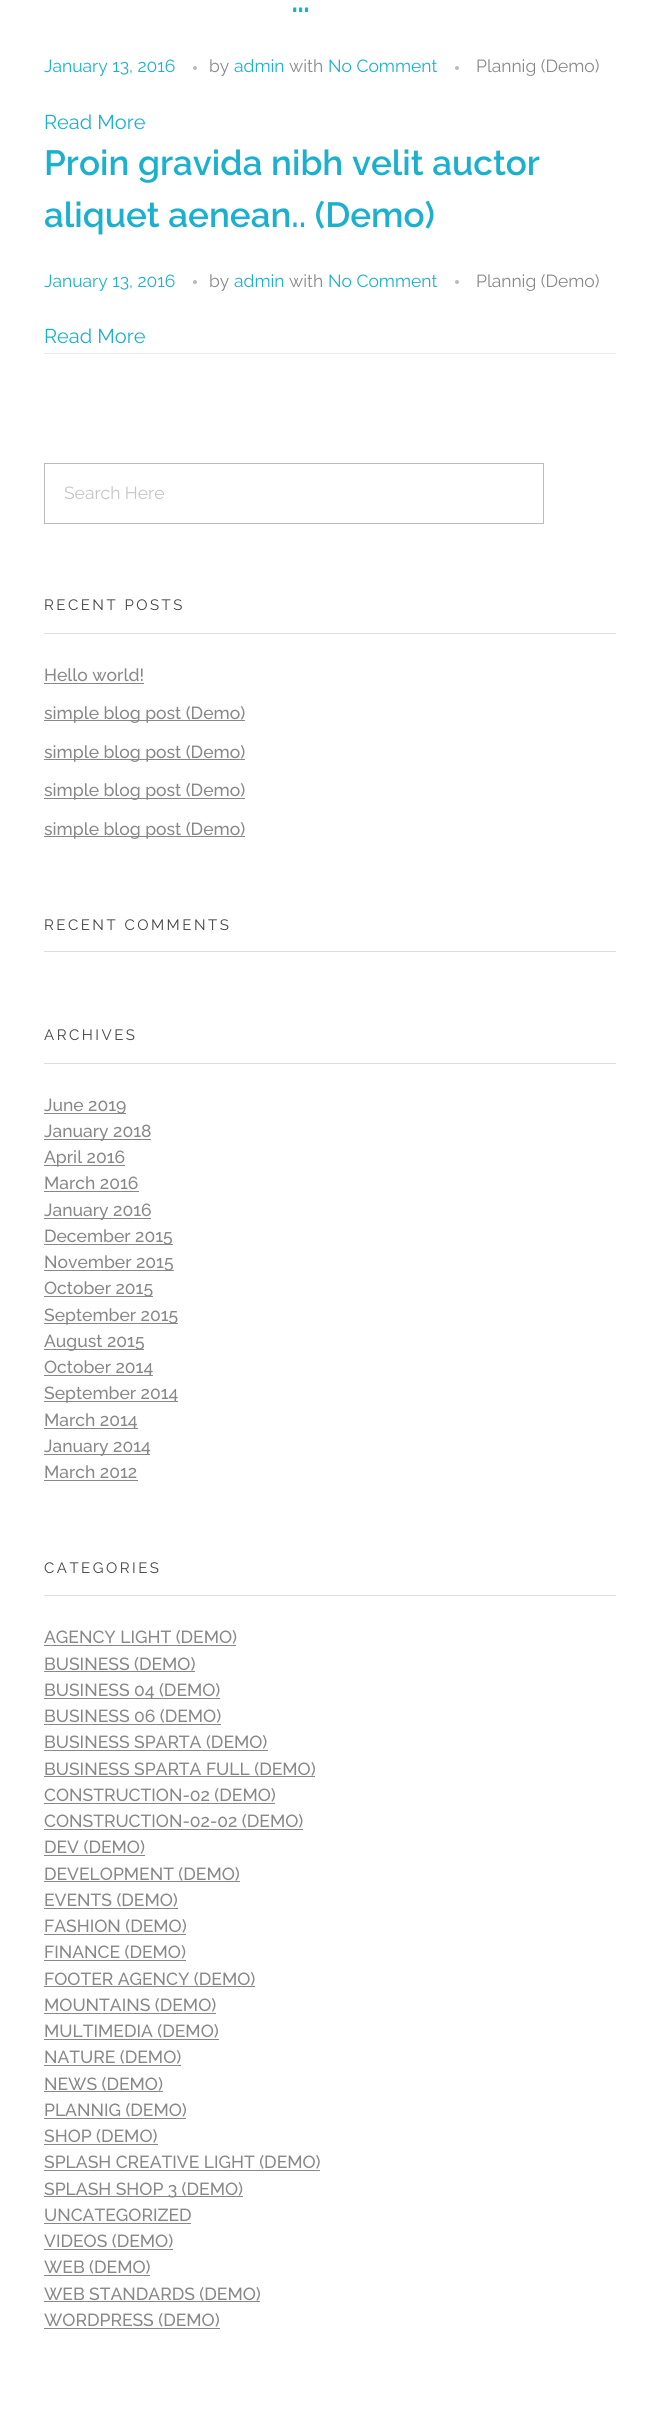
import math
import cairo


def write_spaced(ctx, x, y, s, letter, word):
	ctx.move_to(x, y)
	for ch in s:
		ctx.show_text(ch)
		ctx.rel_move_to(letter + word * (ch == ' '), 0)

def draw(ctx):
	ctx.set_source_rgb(1, 1, 1)
	ctx.paint()
	ctx.select_font_face('Raleway SemiBold')
	ctx.set_font_size(35)
	ctx.set_source_rgb(0.106, 0.69, 0.808)
	ctx.move_to(291, 12)
	ctx.show_text('…')
	ctx.select_font_face('Raleway')
	ctx.set_font_size(17.5)
	ctx.move_to(44, 72)
	ctx.show_text('January 13, 2016')
	ctx.set_source_rgb(0.733, 0.733, 0.733)
	ctx.new_path()
	ctx.arc(195, 68, 2, 0, 2 * math.pi)
	ctx.fill()
	ctx.set_source_rgb(0.533, 0.533, 0.533)
	ctx.move_to(209, 72)
	ctx.show_text('by')
	ctx.set_source_rgb(0.106, 0.69, 0.808)
	ctx.move_to(234, 72)
	ctx.show_text('admin')
	ctx.set_source_rgb(0.533, 0.533, 0.533)
	ctx.move_to(289, 72)
	ctx.show_text('with')
	ctx.set_source_rgb(0.106, 0.69, 0.808)
	ctx.move_to(328, 72)
	ctx.show_text('No Comment')
	ctx.set_source_rgb(0.733, 0.733, 0.733)
	ctx.new_path()
	ctx.arc(457, 68, 2, 0, 2 * math.pi)
	ctx.fill()
	ctx.set_source_rgb(0.533, 0.533, 0.533)
	ctx.move_to(476, 72)
	ctx.show_text('Plannig (Demo)')
	ctx.set_font_size(20)
	ctx.set_source_rgb(0.106, 0.69, 0.808)
	ctx.move_to(44, 129)
	ctx.show_text('Read More')
	ctx.select_font_face('Raleway SemiBold')
	ctx.set_font_size(35)
	ctx.move_to(44, 175)
	ctx.show_text('Proin gravida nibh velit auctor')
	ctx.move_to(44, 227)
	ctx.show_text('aliquet aenean.. (Demo)')
	ctx.select_font_face('Raleway')
	ctx.set_font_size(17.5)
	ctx.move_to(44, 287)
	ctx.show_text('January 13, 2016')
	ctx.set_source_rgb(0.733, 0.733, 0.733)
	ctx.new_path()
	ctx.arc(195, 282, 2, 0, 2 * math.pi)
	ctx.fill()
	ctx.set_source_rgb(0.533, 0.533, 0.533)
	ctx.move_to(209, 287)
	ctx.show_text('by')
	ctx.set_source_rgb(0.106, 0.69, 0.808)
	ctx.move_to(234, 287)
	ctx.show_text('admin')
	ctx.set_source_rgb(0.533, 0.533, 0.533)
	ctx.move_to(289, 287)
	ctx.show_text('with')
	ctx.set_source_rgb(0.106, 0.69, 0.808)
	ctx.move_to(328, 287)
	ctx.show_text('No Comment')
	ctx.set_source_rgb(0.733, 0.733, 0.733)
	ctx.new_path()
	ctx.arc(457, 282, 2, 0, 2 * math.pi)
	ctx.fill()
	ctx.set_source_rgb(0.533, 0.533, 0.533)
	ctx.move_to(476, 287)
	ctx.show_text('Plannig (Demo)')
	ctx.set_font_size(20)
	ctx.set_source_rgb(0.106, 0.69, 0.808)
	ctx.move_to(44, 343)
	ctx.show_text('Read More')
	ctx.set_source_rgb(0.918, 0.918, 0.918)
	ctx.rectangle(44, 353, 572, 1)
	ctx.fill()
	ctx.rectangle(44.5, 463.5, 499, 60)
	ctx.set_source_rgb(0.733, 0.733, 0.733)
	ctx.set_line_width(1)
	ctx.stroke()
	ctx.set_font_size(17.5)
	ctx.set_source_rgb(0.773, 0.773, 0.773)
	ctx.move_to(64, 499)
	ctx.show_text('Search Here')
	ctx.set_source_rgb(0.871, 0.871, 0.871)
	ctx.rectangle(44, 633, 572, 1)
	ctx.fill()
	ctx.set_font_size(15)
	ctx.set_source_rgb(0.267, 0.267, 0.267)
	write_spaced(ctx, 44, 610, 'RECENT POSTS', 2.5, 0)
	ctx.select_font_face('Raleway Medium')
	ctx.set_font_size(17.5)
	ctx.set_source_rgb(0.533, 0.533, 0.533)
	ctx.move_to(44, 681)
	ctx.show_text('Hello world!')
	ctx.rectangle(44, 683, 100, 1)
	ctx.fill()
	ctx.rectangle(44, 720, 201, 1)
	ctx.fill()
	ctx.move_to(44, 719)
	ctx.show_text('simple blog post (Demo)')
	ctx.rectangle(44, 759, 201, 1)
	ctx.fill()
	ctx.move_to(44, 758)
	ctx.show_text('simple blog post (Demo)')
	ctx.rectangle(44, 798, 201, 1)
	ctx.fill()
	ctx.move_to(44, 796)
	ctx.show_text('simple blog post (Demo)')
	ctx.rectangle(44, 836, 201, 1)
	ctx.fill()
	ctx.move_to(44, 835)
	ctx.show_text('simple blog post (Demo)')
	ctx.set_source_rgb(0.871, 0.871, 0.871)
	ctx.rectangle(44, 951, 572, 1)
	ctx.fill()
	ctx.select_font_face('Raleway')
	ctx.set_font_size(15)
	ctx.set_source_rgb(0.267, 0.267, 0.267)
	write_spaced(ctx, 44, 930, 'RECENT COMMENTS', 2.5, 0)
	ctx.set_source_rgb(0.871, 0.871, 0.871)
	ctx.rectangle(44, 1063, 572, 1)
	ctx.fill()
	ctx.set_source_rgb(0.267, 0.267, 0.267)
	write_spaced(ctx, 44, 1040, 'ARCHIVES', 2.5, 0)
	ctx.set_source_rgb(0.533, 0.533, 0.533)
	ctx.rectangle(44, 1113, 82, 1)
	ctx.fill()
	ctx.select_font_face('Raleway Medium')
	ctx.set_font_size(17.5)
	ctx.move_to(44, 1111)
	ctx.show_text('June 2019')
	ctx.rectangle(44, 1139, 107, 1)
	ctx.fill()
	ctx.move_to(44, 1137)
	ctx.show_text('January 2018')
	ctx.rectangle(44, 1165, 81, 1)
	ctx.fill()
	ctx.move_to(44, 1163)
	ctx.show_text('April 2016')
	ctx.move_to(44, 1189)
	ctx.show_text('March 2016')
	ctx.rectangle(44, 1191, 95, 1)
	ctx.fill()
	ctx.rectangle(44, 1218, 107, 1)
	ctx.fill()
	ctx.move_to(44, 1216)
	ctx.show_text('January 2016')
	ctx.rectangle(44, 1244, 129, 1)
	ctx.fill()
	ctx.move_to(44, 1242)
	ctx.show_text('December 2015')
	ctx.rectangle(44, 1270, 130, 1)
	ctx.fill()
	ctx.move_to(44, 1268)
	ctx.show_text('November 2015')
	ctx.rectangle(44, 1296, 109, 1)
	ctx.fill()
	ctx.move_to(44, 1294)
	ctx.show_text('October 2015')
	ctx.rectangle(44, 1323, 134, 1)
	ctx.fill()
	ctx.move_to(44, 1321)
	ctx.show_text('September 2015')
	ctx.rectangle(44, 1349, 100, 1)
	ctx.fill()
	ctx.move_to(44, 1347)
	ctx.show_text('August 2015')
	ctx.rectangle(44, 1375, 109, 1)
	ctx.fill()
	ctx.move_to(44, 1373)
	ctx.show_text('October 2014')
	ctx.rectangle(44, 1401, 134, 1)
	ctx.fill()
	ctx.move_to(44, 1399)
	ctx.show_text('September 2014')
	ctx.rectangle(44, 1428, 94, 1)
	ctx.fill()
	ctx.move_to(44, 1426)
	ctx.show_text('March 2014')
	ctx.rectangle(44, 1454, 106, 1)
	ctx.fill()
	ctx.move_to(44, 1452)
	ctx.show_text('January 2014')
	ctx.move_to(44, 1478)
	ctx.show_text('March 2012')
	ctx.rectangle(44, 1480, 94, 1)
	ctx.fill()
	ctx.set_source_rgb(0.871, 0.871, 0.871)
	ctx.rectangle(44, 1595, 572, 1)
	ctx.fill()
	ctx.select_font_face('Raleway')
	ctx.set_font_size(15)
	ctx.set_source_rgb(0.267, 0.267, 0.267)
	write_spaced(ctx, 44, 1573, 'CATEGORIES', 2.5, 0)
	ctx.select_font_face('Raleway Medium')
	ctx.set_font_size(17.5)
	ctx.set_source_rgb(0.533, 0.533, 0.533)
	ctx.move_to(44, 1643)
	ctx.show_text('AGENCY LIGHT (DEMO)')
	ctx.rectangle(44, 1645, 192, 1)
	ctx.fill()
	ctx.move_to(44, 1670)
	ctx.show_text('BUSINESS (DEMO)')
	ctx.rectangle(44, 1671, 151, 1)
	ctx.fill()
	ctx.rectangle(44, 1698, 176, 1)
	ctx.fill()
	ctx.move_to(44, 1696)
	ctx.show_text('BUSINESS 04 (DEMO)')
	ctx.move_to(44, 1722)
	ctx.show_text('BUSINESS 06 (DEMO)')
	ctx.rectangle(44, 1724, 177, 1)
	ctx.fill()
	ctx.move_to(44, 1748)
	ctx.show_text('BUSINESS SPARTA (DEMO)')
	ctx.rectangle(44, 1750, 224, 1)
	ctx.fill()
	ctx.move_to(44, 1775)
	ctx.show_text('BUSINESS SPARTA FULL (DEMO)')
	ctx.rectangle(44, 1776, 271, 1)
	ctx.fill()
	ctx.move_to(44, 1801)
	ctx.show_text('CONSTRUCTION-02 (DEMO)')
	ctx.rectangle(44, 1803, 231, 1)
	ctx.fill()
	ctx.move_to(44, 1827)
	ctx.show_text('CONSTRUCTION-02-02 (DEMO)')
	ctx.rectangle(44, 1829, 259, 1)
	ctx.fill()
	ctx.move_to(44, 1853)
	ctx.show_text('DEV (DEMO)')
	ctx.rectangle(44, 1855, 101, 1)
	ctx.fill()
	ctx.move_to(44, 1880)
	ctx.show_text('DEVELOPMENT (DEMO)')
	ctx.rectangle(44, 1881, 196, 1)
	ctx.fill()
	ctx.move_to(44, 1906)
	ctx.show_text('EVENTS (DEMO)')
	ctx.rectangle(44, 1908, 134, 1)
	ctx.fill()
	ctx.move_to(44, 1932)
	ctx.show_text('FASHION (DEMO)')
	ctx.rectangle(44, 1934, 142, 1)
	ctx.fill()
	ctx.move_to(44, 1958)
	ctx.show_text('FINANCE (DEMO)')
	ctx.rectangle(44, 1960, 142, 1)
	ctx.fill()
	ctx.move_to(44, 1985)
	ctx.show_text('FOOTER AGENCY (DEMO)')
	ctx.rectangle(44, 1986, 211, 1)
	ctx.fill()
	ctx.move_to(44, 2011)
	ctx.show_text('MOUNTAINS (DEMO)')
	ctx.rectangle(44, 2013, 172, 1)
	ctx.fill()
	ctx.move_to(44, 2037)
	ctx.show_text('MULTIMEDIA (DEMO)')
	ctx.rectangle(44, 2039, 175, 1)
	ctx.fill()
	ctx.move_to(44, 2063)
	ctx.show_text('NATURE (DEMO)')
	ctx.rectangle(44, 2065, 137, 1)
	ctx.fill()
	ctx.move_to(44, 2090)
	ctx.show_text('NEWS (DEMO)')
	ctx.rectangle(44, 2091, 119, 1)
	ctx.fill()
	ctx.move_to(44, 2116)
	ctx.show_text('PLANNIG (DEMO)')
	ctx.rectangle(44, 2118, 142, 1)
	ctx.fill()
	ctx.move_to(44, 2142)
	ctx.show_text('SHOP (DEMO)')
	ctx.rectangle(44, 2144, 114, 1)
	ctx.fill()
	ctx.move_to(44, 2168)
	ctx.show_text('SPLASH CREATIVE LIGHT (DEMO)')
	ctx.rectangle(44, 2170, 276, 1)
	ctx.fill()
	ctx.rectangle(44, 2196, 199, 1)
	ctx.fill()
	ctx.move_to(44, 2195)
	ctx.show_text('SPLASH SHOP 3 (DEMO)')
	ctx.move_to(44, 2221)
	ctx.show_text('UNCATEGORIZED')
	ctx.rectangle(44, 2223, 147, 1)
	ctx.fill()
	ctx.move_to(44, 2247)
	ctx.show_text('VIDEOS (DEMO)')
	ctx.rectangle(44, 2249, 129, 1)
	ctx.fill()
	ctx.move_to(44, 2273)
	ctx.show_text('WEB (DEMO)')
	ctx.rectangle(44, 2275, 106, 1)
	ctx.fill()
	ctx.move_to(44, 2300)
	ctx.show_text('WEB STANDARDS (DEMO)')
	ctx.rectangle(44, 2301, 216, 1)
	ctx.fill()
	ctx.move_to(44, 2326)
	ctx.show_text('WORDPRESS (DEMO)')
	ctx.rectangle(44, 2328, 176, 1)
	ctx.fill()


surface = cairo.ImageSurface(cairo.FORMAT_RGB24, 660, 2412)
ctx = cairo.Context(surface)
options = cairo.FontOptions()
options.set_hint_metrics(cairo.HINT_METRICS_OFF)
options.set_hint_style(cairo.HINT_STYLE_NONE)
ctx.set_font_options(options)
ctx.set_miter_limit(4)
draw(ctx)
surface.write_to_png('image.png')
